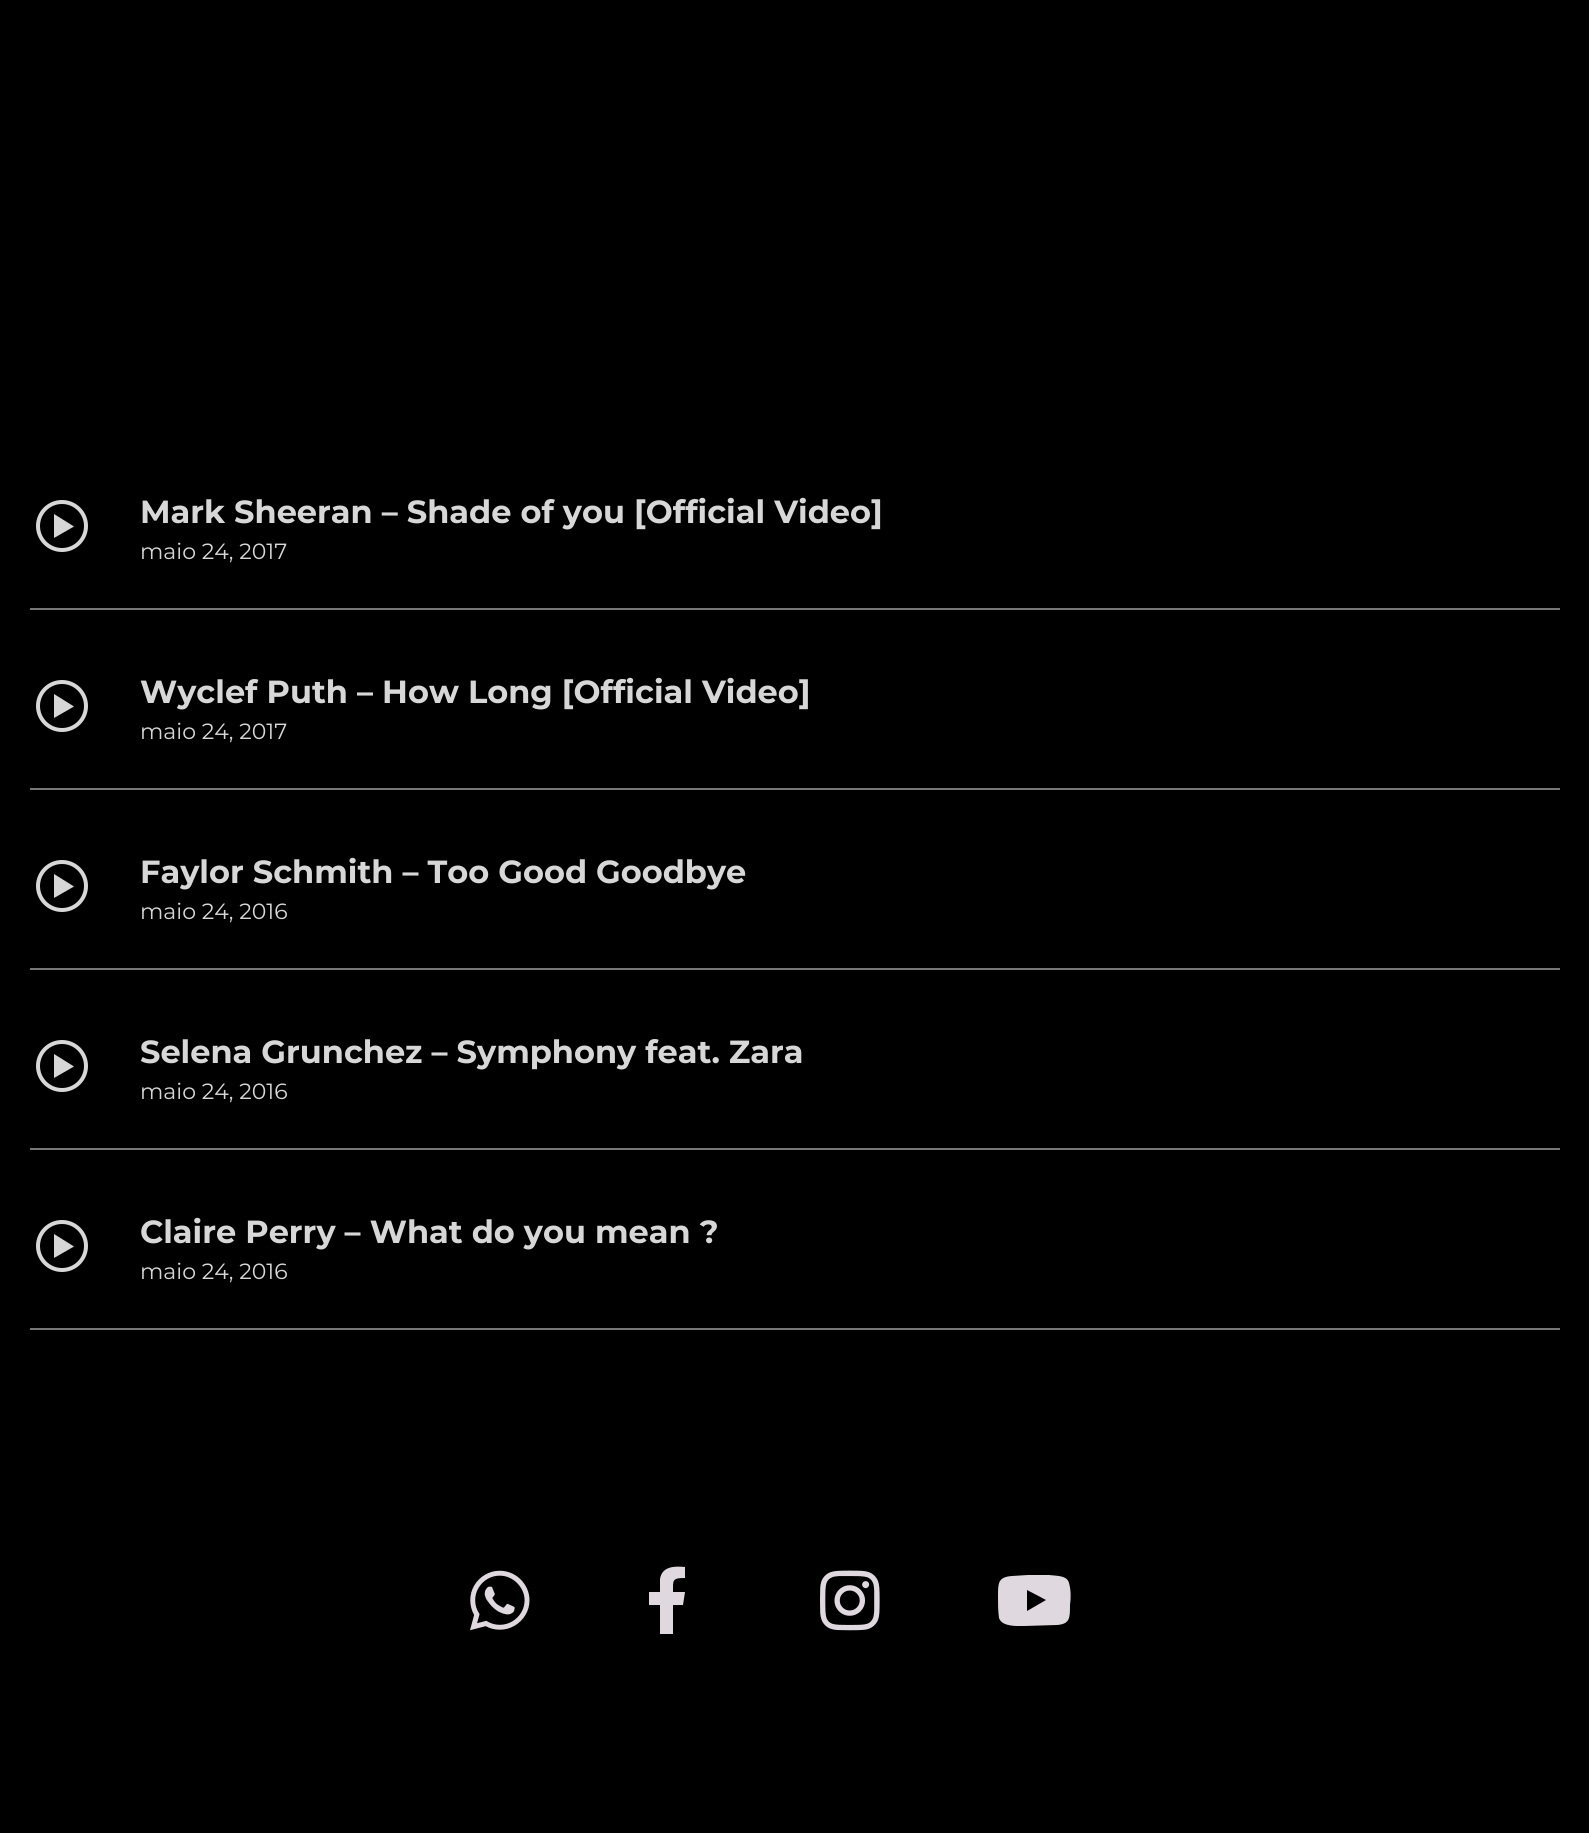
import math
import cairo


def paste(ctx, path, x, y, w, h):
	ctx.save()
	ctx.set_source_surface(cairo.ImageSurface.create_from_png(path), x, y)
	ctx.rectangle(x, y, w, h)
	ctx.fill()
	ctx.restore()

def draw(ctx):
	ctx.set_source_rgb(0, 0, 0)
	ctx.paint()
	ctx.set_source_rgb(0.467, 0.467, 0.467)
	ctx.rectangle(30, 608, 1530, 2)
	ctx.fill()
	ctx.arc(62, 526, 24, 0, 2 * math.pi)
	ctx.set_source_rgb(0.843, 0.843, 0.843)
	ctx.set_line_width(4)
	ctx.stroke()
	ctx.new_path()
	ctx.move_to(54, 514)
	ctx.line_to(74, 526.5)
	ctx.line_to(54, 538)
	ctx.close_path()
	ctx.fill()
	ctx.select_font_face('Montserrat', cairo.FONT_SLANT_NORMAL, cairo.FONT_WEIGHT_BOLD)
	ctx.set_font_size(32)
	ctx.move_to(140, 523)
	ctx.show_text('Mark Sheeran – Shade of you [Official Video]')
	ctx.select_font_face('Montserrat')
	ctx.set_font_size(22)
	ctx.move_to(140, 559)
	ctx.show_text('maio 24, 2017')
	ctx.set_source_rgb(0.467, 0.467, 0.467)
	ctx.rectangle(30, 788, 1530, 2)
	ctx.fill()
	ctx.arc(62, 706, 24, 0, 2 * math.pi)
	ctx.set_source_rgb(0.843, 0.843, 0.843)
	ctx.stroke()
	ctx.new_path()
	ctx.move_to(54, 694)
	ctx.line_to(74, 706.5)
	ctx.line_to(54, 718)
	ctx.close_path()
	ctx.fill()
	ctx.select_font_face('Montserrat', cairo.FONT_SLANT_NORMAL, cairo.FONT_WEIGHT_BOLD)
	ctx.set_font_size(32)
	ctx.move_to(140, 703)
	ctx.show_text('Wyclef Puth – How Long [Official Video]')
	ctx.select_font_face('Montserrat')
	ctx.set_font_size(22)
	ctx.move_to(140, 739)
	ctx.show_text('maio 24, 2017')
	ctx.set_source_rgb(0.467, 0.467, 0.467)
	ctx.rectangle(30, 968, 1530, 2)
	ctx.fill()
	ctx.arc(62, 886, 24, 0, 2 * math.pi)
	ctx.set_source_rgb(0.843, 0.843, 0.843)
	ctx.stroke()
	ctx.new_path()
	ctx.move_to(54, 874)
	ctx.line_to(74, 886.5)
	ctx.line_to(54, 898)
	ctx.close_path()
	ctx.fill()
	ctx.select_font_face('Montserrat', cairo.FONT_SLANT_NORMAL, cairo.FONT_WEIGHT_BOLD)
	ctx.set_font_size(32)
	ctx.move_to(140, 883)
	ctx.show_text('Faylor Schmith – Too Good Goodbye')
	ctx.select_font_face('Montserrat')
	ctx.set_font_size(22)
	ctx.move_to(140, 919)
	ctx.show_text('maio 24, 2016')
	ctx.set_source_rgb(0.467, 0.467, 0.467)
	ctx.rectangle(30, 1148, 1530, 2)
	ctx.fill()
	ctx.arc(62, 1066, 24, 0, 2 * math.pi)
	ctx.set_source_rgb(0.843, 0.843, 0.843)
	ctx.stroke()
	ctx.new_path()
	ctx.move_to(54, 1054)
	ctx.line_to(74, 1066.5)
	ctx.line_to(54, 1078)
	ctx.close_path()
	ctx.fill()
	ctx.select_font_face('Montserrat', cairo.FONT_SLANT_NORMAL, cairo.FONT_WEIGHT_BOLD)
	ctx.set_font_size(32)
	ctx.move_to(140, 1063)
	ctx.show_text('Selena Grunchez – Symphony feat. Zara')
	ctx.select_font_face('Montserrat')
	ctx.set_font_size(22)
	ctx.move_to(140, 1099)
	ctx.show_text('maio 24, 2016')
	ctx.set_source_rgb(0.467, 0.467, 0.467)
	ctx.rectangle(30, 1328, 1530, 2)
	ctx.fill()
	ctx.arc(62, 1246, 24, 0, 2 * math.pi)
	ctx.set_source_rgb(0.843, 0.843, 0.843)
	ctx.stroke()
	ctx.new_path()
	ctx.move_to(54, 1234)
	ctx.line_to(74, 1246.5)
	ctx.line_to(54, 1258)
	ctx.close_path()
	ctx.fill()
	ctx.select_font_face('Montserrat', cairo.FONT_SLANT_NORMAL, cairo.FONT_WEIGHT_BOLD)
	ctx.set_font_size(32)
	ctx.move_to(140, 1243)
	ctx.show_text('Claire Perry – What do you mean ?')
	ctx.select_font_face('Montserrat')
	ctx.set_font_size(22)
	ctx.move_to(140, 1279)
	ctx.show_text('maio 24, 2016')
	paste(ctx, 'media/1.png', 470, 1570, 60, 61)
	ctx.set_source_rgb(0.875, 0.851, 0.875)
	ctx.new_path()
	ctx.move_to(683, 1605)
	ctx.line_to(673, 1605)
	ctx.line_to(673, 1634)
	ctx.line_to(660, 1634)
	ctx.line_to(660, 1605)
	ctx.line_to(649, 1605)
	ctx.line_to(649, 1592)
	ctx.line_to(660, 1592)
	ctx.line_to(660, 1579)
	ctx.curve_to(662, 1566, 675, 1566, 685, 1567)
	ctx.line_to(685, 1578)
	ctx.curve_to(672, 1578, 673, 1580, 673, 1592)
	ctx.line_to(685, 1592)
	ctx.close_path()
	ctx.fill()
	paste(ctx, 'media/2.png', 820, 1570, 60, 61)
	ctx.new_path()
	ctx.move_to(1069, 1583)
	ctx.curve_to(1071, 1590, 1071, 1598, 1070, 1605)
	ctx.curve_to(1070, 1618, 1070, 1624, 1057, 1625)
	ctx.line_to(1024, 1626)
	ctx.curve_to(1017, 1626, 1002, 1627, 999, 1618)
	ctx.curve_to(998, 1611, 998, 1603, 998, 1596)
	ctx.curve_to(998, 1583, 998, 1577, 1012, 1576)
	ctx.line_to(1028, 1575)
	ctx.line_to(1049, 1575)
	ctx.curve_to(1056, 1576, 1067, 1575, 1069, 1583)
	ctx.close_path()
	ctx.move_to(1027, 1611)
	ctx.line_to(1046, 1600)
	ctx.line_to(1027, 1590)
	ctx.close_path()
	ctx.fill()


surface = cairo.ImageSurface(cairo.FORMAT_RGB24, 1589, 1833)
ctx = cairo.Context(surface)
options = cairo.FontOptions()
options.set_hint_metrics(cairo.HINT_METRICS_OFF)
options.set_hint_style(cairo.HINT_STYLE_NONE)
ctx.set_font_options(options)
ctx.set_miter_limit(4)
draw(ctx)
surface.write_to_png('image.png')
